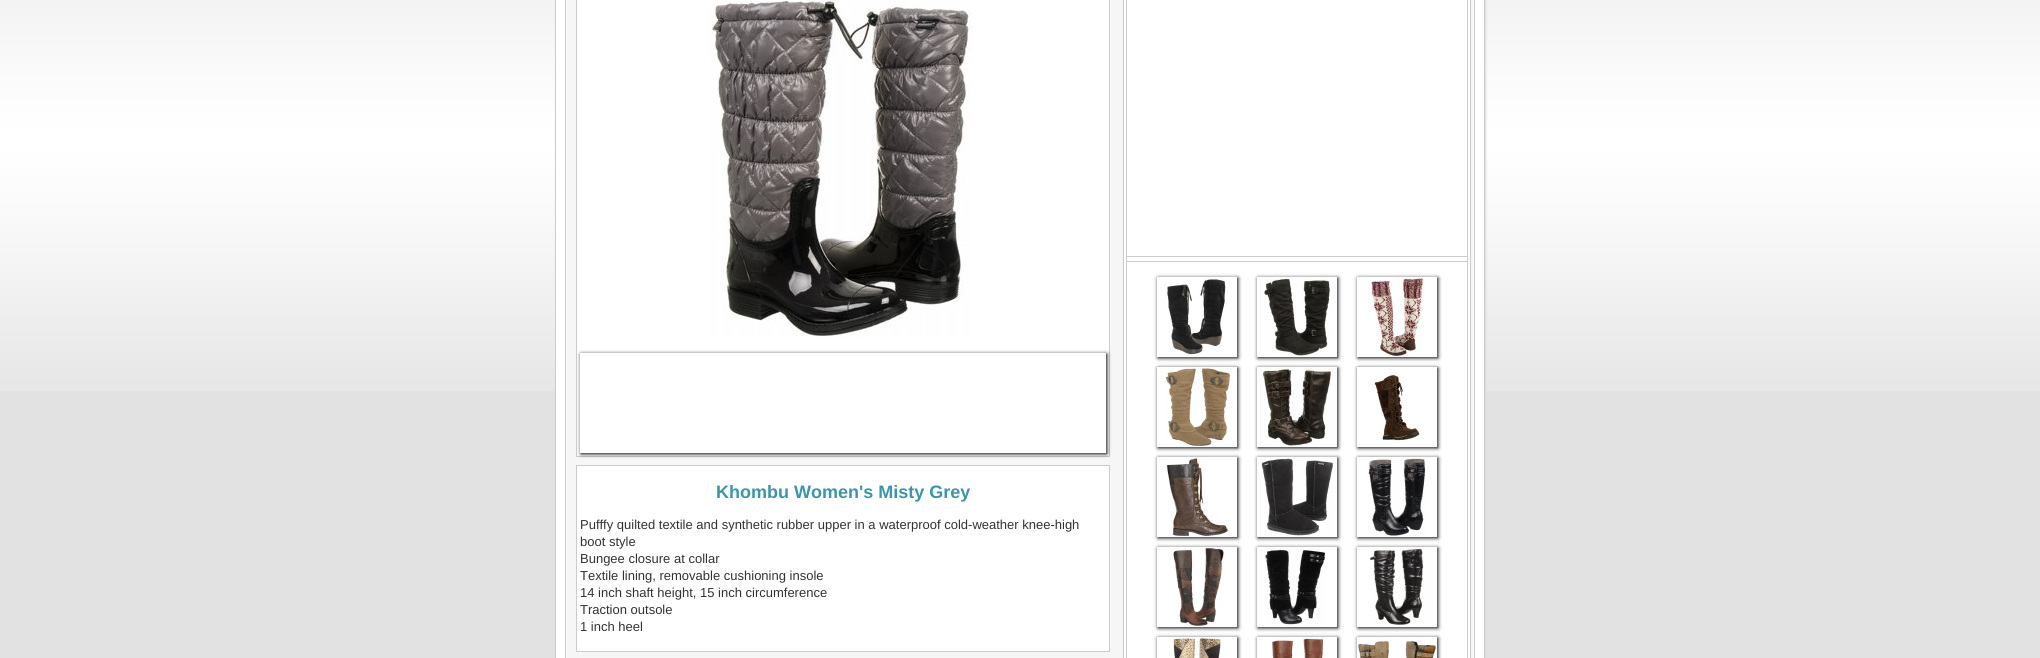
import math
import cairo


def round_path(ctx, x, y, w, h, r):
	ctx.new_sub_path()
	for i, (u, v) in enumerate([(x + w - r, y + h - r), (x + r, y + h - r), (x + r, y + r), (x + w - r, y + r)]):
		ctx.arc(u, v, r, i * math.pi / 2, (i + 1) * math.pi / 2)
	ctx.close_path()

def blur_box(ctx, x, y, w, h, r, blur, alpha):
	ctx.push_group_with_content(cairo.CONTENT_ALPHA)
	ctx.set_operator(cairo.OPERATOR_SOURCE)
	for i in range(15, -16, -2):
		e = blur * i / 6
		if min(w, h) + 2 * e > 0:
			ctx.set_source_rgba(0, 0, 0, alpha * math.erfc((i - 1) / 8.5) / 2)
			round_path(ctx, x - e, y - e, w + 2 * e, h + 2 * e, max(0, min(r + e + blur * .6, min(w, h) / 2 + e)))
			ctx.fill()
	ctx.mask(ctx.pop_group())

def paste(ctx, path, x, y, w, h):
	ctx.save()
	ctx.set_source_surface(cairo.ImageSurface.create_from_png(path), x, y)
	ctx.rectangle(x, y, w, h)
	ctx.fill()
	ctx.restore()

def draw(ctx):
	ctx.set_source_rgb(0.886, 0.886, 0.886)
	ctx.paint()
	paste(ctx, 'media/1.png', 0, 0, 2040, 391)
	ctx.set_source_rgb(0.855, 0.855, 0.855)
	blur_box(ctx, 556, -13, 930, 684, 10, 1, 1)
	ctx.set_source_rgb(1, 1, 1)
	ctx.rectangle(555.5, -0.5, 929, 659)
	ctx.fill_preserve()
	ctx.set_source_rgb(0.8, 0.8, 0.8)
	ctx.set_line_width(1)
	ctx.stroke()
	ctx.set_source_rgb(0.961, 0.961, 0.961)
	ctx.rectangle(565.5, -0.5, 909, 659)
	ctx.fill_preserve()
	ctx.set_source_rgb(0.8, 0.8, 0.8)
	ctx.stroke()
	ctx.set_source_rgb(1, 1, 1)
	ctx.rectangle(576.5, -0.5, 533, 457)
	ctx.fill_preserve()
	ctx.set_source_rgb(0.8, 0.8, 0.8)
	ctx.stroke()
	paste(ctx, 'media/2.png', 708, 1, 264, 338)
	ctx.save()
	ctx.set_fill_rule(cairo.FILL_RULE_EVEN_ODD)
	ctx.new_path()
	ctx.move_to(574, 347)
	ctx.line_to(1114, 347)
	ctx.line_to(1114, 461)
	ctx.line_to(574, 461)
	ctx.close_path()
	ctx.move_to(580, 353)
	ctx.line_to(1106, 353)
	ctx.line_to(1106, 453)
	ctx.line_to(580, 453)
	ctx.close_path()
	ctx.clip()
	ctx.set_source_rgb(0, 0, 0)
	blur_box(ctx, 581, 354, 526, 100, 0, 2, 1)
	ctx.restore()
	ctx.set_source_rgb(1, 1, 1)
	ctx.rectangle(576.5, 465.5, 533, 186)
	ctx.fill_preserve()
	ctx.set_source_rgb(0.8, 0.8, 0.8)
	ctx.stroke()
	ctx.select_font_face('Liberation Sans', cairo.FONT_SLANT_NORMAL, cairo.FONT_WEIGHT_BOLD)
	ctx.set_font_size(18)
	ctx.set_source_rgb(0.235, 0.588, 0.667)
	ctx.move_to(716, 498)
	ctx.show_text('Khombu Women\'s Misty Grey')
	ctx.select_font_face('Liberation Sans')
	ctx.set_font_size(13)
	ctx.set_source_rgb(0.196, 0.196, 0.196)
	for x, y, s in [
		(580, 529, 'Pufffy quilted textile and synthetic rubber upper in a waterproof cold-weather knee-high'),
		(580, 546, 'boot style'),
		(580, 563, 'Bungee closure at collar'),
		(580, 580, 'Textile lining, removable cushioning insole'),
		(580, 597, '14 inch shaft height, 15 inch circumference'),
		(580, 614, 'Traction outsole'),
		(580, 631, '1 inch heel'),
	]:
		ctx.move_to(x, y)
		ctx.show_text(s)
	ctx.set_source_rgb(1, 1, 1)
	ctx.rectangle(1123.5, -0.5, 347, 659)
	ctx.fill_preserve()
	ctx.set_source_rgb(0.8, 0.8, 0.8)
	ctx.stroke()
	ctx.rectangle(1126.5, -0.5, 341, 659)
	ctx.stroke()
	ctx.rectangle(1127, 256, 340, 1)
	ctx.fill()
	ctx.rectangle(1127, 261, 340, 1)
	ctx.fill()
	ctx.save()
	ctx.set_fill_rule(cairo.FILL_RULE_EVEN_ODD)
	ctx.new_path()
	ctx.move_to(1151, 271)
	ctx.line_to(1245, 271)
	ctx.line_to(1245, 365)
	ctx.line_to(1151, 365)
	ctx.close_path()
	ctx.move_to(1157, 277)
	ctx.line_to(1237, 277)
	ctx.line_to(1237, 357)
	ctx.line_to(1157, 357)
	ctx.close_path()
	ctx.clip()
	ctx.set_source_rgb(0, 0, 0)
	blur_box(ctx, 1158, 278, 80, 80, 0, 2, 1)
	ctx.restore()
	paste(ctx, 'media/3.png', 1167, 279, 59, 77)
	ctx.save()
	ctx.set_fill_rule(cairo.FILL_RULE_EVEN_ODD)
	ctx.new_path()
	ctx.move_to(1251, 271)
	ctx.line_to(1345, 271)
	ctx.line_to(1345, 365)
	ctx.line_to(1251, 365)
	ctx.close_path()
	ctx.move_to(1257, 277)
	ctx.line_to(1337, 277)
	ctx.line_to(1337, 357)
	ctx.line_to(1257, 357)
	ctx.close_path()
	ctx.clip()
	ctx.set_source_rgb(0, 0, 0)
	blur_box(ctx, 1258, 278, 80, 80, 0, 2, 1)
	ctx.restore()
	paste(ctx, 'media/4.png', 1261, 277, 71, 80)
	ctx.save()
	ctx.set_fill_rule(cairo.FILL_RULE_EVEN_ODD)
	ctx.new_path()
	ctx.move_to(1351, 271)
	ctx.line_to(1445, 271)
	ctx.line_to(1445, 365)
	ctx.line_to(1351, 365)
	ctx.close_path()
	ctx.move_to(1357, 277)
	ctx.line_to(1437, 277)
	ctx.line_to(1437, 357)
	ctx.line_to(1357, 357)
	ctx.close_path()
	ctx.clip()
	ctx.set_source_rgb(0, 0, 0)
	blur_box(ctx, 1358, 278, 80, 80, 0, 2, 1)
	ctx.restore()
	paste(ctx, 'media/5.png', 1365, 277, 61, 80)
	ctx.save()
	ctx.set_fill_rule(cairo.FILL_RULE_EVEN_ODD)
	ctx.new_path()
	ctx.move_to(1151, 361)
	ctx.line_to(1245, 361)
	ctx.line_to(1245, 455)
	ctx.line_to(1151, 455)
	ctx.close_path()
	ctx.move_to(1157, 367)
	ctx.line_to(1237, 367)
	ctx.line_to(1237, 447)
	ctx.line_to(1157, 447)
	ctx.close_path()
	ctx.clip()
	ctx.set_source_rgb(0, 0, 0)
	blur_box(ctx, 1158, 368, 80, 80, 0, 2, 1)
	ctx.restore()
	paste(ctx, 'media/6.png', 1165, 367, 70, 80)
	ctx.save()
	ctx.set_fill_rule(cairo.FILL_RULE_EVEN_ODD)
	ctx.new_path()
	ctx.move_to(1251, 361)
	ctx.line_to(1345, 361)
	ctx.line_to(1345, 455)
	ctx.line_to(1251, 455)
	ctx.close_path()
	ctx.move_to(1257, 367)
	ctx.line_to(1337, 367)
	ctx.line_to(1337, 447)
	ctx.line_to(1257, 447)
	ctx.close_path()
	ctx.clip()
	ctx.set_source_rgb(0, 0, 0)
	blur_box(ctx, 1258, 368, 80, 80, 0, 2, 1)
	ctx.restore()
	paste(ctx, 'media/7.png', 1260, 367, 77, 80)
	ctx.save()
	ctx.set_fill_rule(cairo.FILL_RULE_EVEN_ODD)
	ctx.new_path()
	ctx.move_to(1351, 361)
	ctx.line_to(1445, 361)
	ctx.line_to(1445, 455)
	ctx.line_to(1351, 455)
	ctx.close_path()
	ctx.move_to(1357, 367)
	ctx.line_to(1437, 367)
	ctx.line_to(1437, 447)
	ctx.line_to(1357, 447)
	ctx.close_path()
	ctx.clip()
	ctx.set_source_rgb(0, 0, 0)
	blur_box(ctx, 1358, 368, 80, 80, 0, 2, 1)
	ctx.restore()
	paste(ctx, 'media/8.png', 1373, 375, 48, 66)
	ctx.save()
	ctx.set_fill_rule(cairo.FILL_RULE_EVEN_ODD)
	ctx.new_path()
	ctx.move_to(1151, 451)
	ctx.line_to(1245, 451)
	ctx.line_to(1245, 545)
	ctx.line_to(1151, 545)
	ctx.close_path()
	ctx.move_to(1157, 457)
	ctx.line_to(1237, 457)
	ctx.line_to(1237, 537)
	ctx.line_to(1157, 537)
	ctx.close_path()
	ctx.clip()
	ctx.set_source_rgb(0, 0, 0)
	blur_box(ctx, 1158, 458, 80, 80, 0, 2, 1)
	ctx.restore()
	paste(ctx, 'media/9.png', 1166, 457, 63, 80)
	ctx.save()
	ctx.set_fill_rule(cairo.FILL_RULE_EVEN_ODD)
	ctx.new_path()
	ctx.move_to(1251, 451)
	ctx.line_to(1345, 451)
	ctx.line_to(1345, 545)
	ctx.line_to(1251, 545)
	ctx.close_path()
	ctx.move_to(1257, 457)
	ctx.line_to(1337, 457)
	ctx.line_to(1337, 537)
	ctx.line_to(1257, 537)
	ctx.close_path()
	ctx.clip()
	ctx.set_source_rgb(0, 0, 0)
	blur_box(ctx, 1258, 458, 80, 80, 0, 2, 1)
	ctx.restore()
	paste(ctx, 'media/10.png', 1261, 457, 72, 79)
	ctx.save()
	ctx.set_fill_rule(cairo.FILL_RULE_EVEN_ODD)
	ctx.new_path()
	ctx.move_to(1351, 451)
	ctx.line_to(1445, 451)
	ctx.line_to(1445, 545)
	ctx.line_to(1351, 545)
	ctx.close_path()
	ctx.move_to(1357, 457)
	ctx.line_to(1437, 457)
	ctx.line_to(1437, 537)
	ctx.line_to(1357, 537)
	ctx.close_path()
	ctx.clip()
	ctx.set_source_rgb(0, 0, 0)
	blur_box(ctx, 1358, 458, 80, 80, 0, 2, 1)
	ctx.restore()
	paste(ctx, 'media/11.png', 1368, 457, 60, 80)
	ctx.save()
	ctx.set_fill_rule(cairo.FILL_RULE_EVEN_ODD)
	ctx.new_path()
	ctx.move_to(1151, 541)
	ctx.line_to(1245, 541)
	ctx.line_to(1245, 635)
	ctx.line_to(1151, 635)
	ctx.close_path()
	ctx.move_to(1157, 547)
	ctx.line_to(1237, 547)
	ctx.line_to(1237, 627)
	ctx.line_to(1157, 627)
	ctx.close_path()
	ctx.clip()
	ctx.set_source_rgb(0, 0, 0)
	blur_box(ctx, 1158, 548, 80, 80, 0, 2, 1)
	ctx.restore()
	paste(ctx, 'media/12.png', 1173, 547, 52, 80)
	ctx.save()
	ctx.set_fill_rule(cairo.FILL_RULE_EVEN_ODD)
	ctx.new_path()
	ctx.move_to(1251, 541)
	ctx.line_to(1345, 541)
	ctx.line_to(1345, 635)
	ctx.line_to(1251, 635)
	ctx.close_path()
	ctx.move_to(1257, 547)
	ctx.line_to(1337, 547)
	ctx.line_to(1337, 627)
	ctx.line_to(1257, 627)
	ctx.close_path()
	ctx.clip()
	ctx.set_source_rgb(0, 0, 0)
	blur_box(ctx, 1258, 548, 80, 80, 0, 2, 1)
	ctx.restore()
	paste(ctx, 'media/13.png', 1265, 547, 61, 80)
	ctx.save()
	ctx.set_fill_rule(cairo.FILL_RULE_EVEN_ODD)
	ctx.new_path()
	ctx.move_to(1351, 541)
	ctx.line_to(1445, 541)
	ctx.line_to(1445, 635)
	ctx.line_to(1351, 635)
	ctx.close_path()
	ctx.move_to(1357, 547)
	ctx.line_to(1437, 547)
	ctx.line_to(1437, 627)
	ctx.line_to(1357, 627)
	ctx.close_path()
	ctx.clip()
	ctx.set_source_rgb(0, 0, 0)
	blur_box(ctx, 1358, 548, 80, 80, 0, 2, 1)
	ctx.restore()
	paste(ctx, 'media/14.png', 1370, 547, 63, 80)
	ctx.save()
	ctx.set_fill_rule(cairo.FILL_RULE_EVEN_ODD)
	ctx.new_path()
	ctx.move_to(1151, 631)
	ctx.line_to(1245, 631)
	ctx.line_to(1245, 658)
	ctx.line_to(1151, 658)
	ctx.close_path()
	ctx.move_to(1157, 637)
	ctx.line_to(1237, 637)
	ctx.line_to(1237, 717)
	ctx.line_to(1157, 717)
	ctx.close_path()
	ctx.clip()
	ctx.set_source_rgb(0, 0, 0)
	blur_box(ctx, 1158, 638, 80, 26, 0, 2, 1)
	ctx.restore()
	paste(ctx, 'media/15.png', 1173, 637, 48, 21)
	ctx.save()
	ctx.set_fill_rule(cairo.FILL_RULE_EVEN_ODD)
	ctx.new_path()
	ctx.move_to(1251, 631)
	ctx.line_to(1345, 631)
	ctx.line_to(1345, 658)
	ctx.line_to(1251, 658)
	ctx.close_path()
	ctx.move_to(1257, 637)
	ctx.line_to(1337, 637)
	ctx.line_to(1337, 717)
	ctx.line_to(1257, 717)
	ctx.close_path()
	ctx.clip()
	ctx.set_source_rgb(0, 0, 0)
	blur_box(ctx, 1258, 638, 80, 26, 0, 2, 1)
	ctx.restore()
	paste(ctx, 'media/16.png', 1271, 637, 58, 21)
	ctx.set_source_rgb(0, 0, 0)
	blur_box(ctx, 1358, 638, 80, 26, 0, 2, 1)
	paste(ctx, 'media/17.png', 1357, 637, 80, 21)


surface = cairo.ImageSurface(cairo.FORMAT_RGB24, 2040, 658)
ctx = cairo.Context(surface)
options = cairo.FontOptions()
options.set_hint_metrics(cairo.HINT_METRICS_OFF)
options.set_hint_style(cairo.HINT_STYLE_NONE)
ctx.set_font_options(options)
ctx.set_miter_limit(4)
draw(ctx)
surface.write_to_png('image.png')
